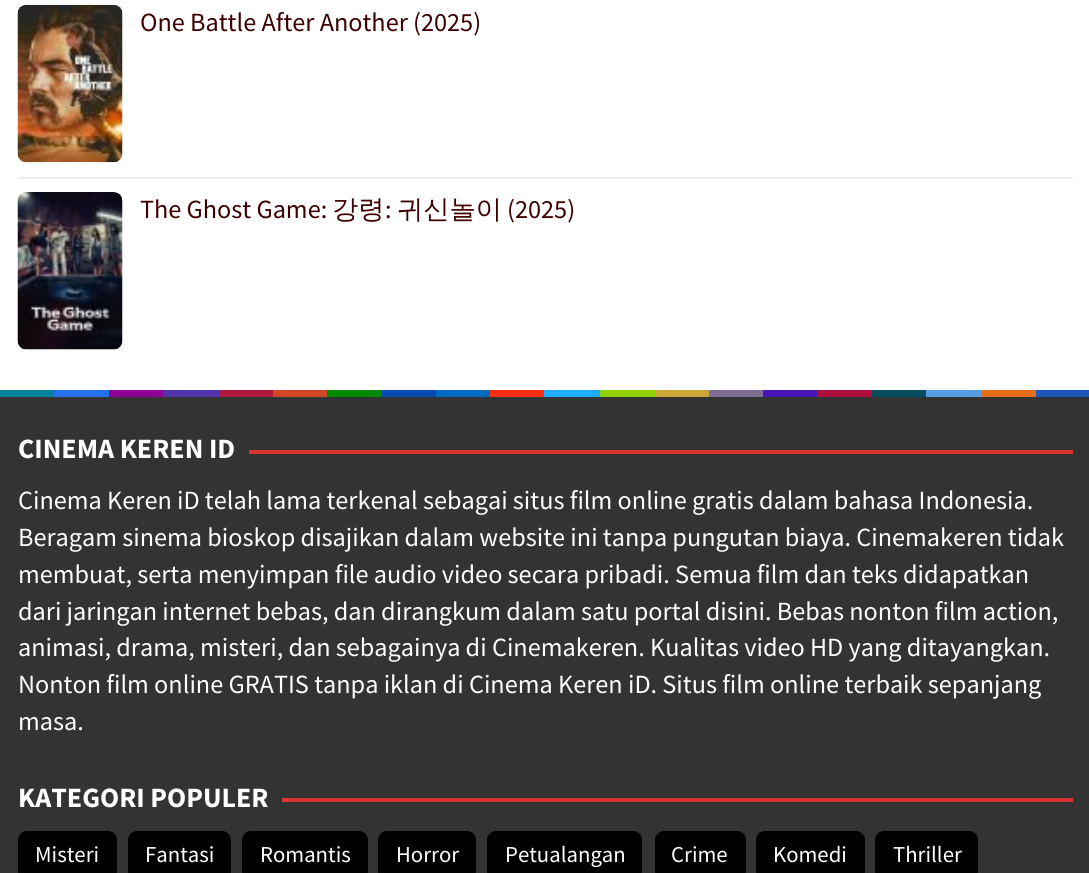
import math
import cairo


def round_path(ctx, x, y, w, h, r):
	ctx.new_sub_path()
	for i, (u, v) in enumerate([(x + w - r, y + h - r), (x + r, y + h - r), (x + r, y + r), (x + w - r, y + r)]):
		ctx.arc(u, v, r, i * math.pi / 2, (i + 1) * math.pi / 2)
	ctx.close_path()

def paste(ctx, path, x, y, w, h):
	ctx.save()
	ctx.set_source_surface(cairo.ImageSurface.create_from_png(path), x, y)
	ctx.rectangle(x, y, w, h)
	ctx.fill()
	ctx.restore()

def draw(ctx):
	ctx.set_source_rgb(1, 1, 1)
	ctx.paint()
	ctx.set_source_rgb(0.933, 0.933, 0.933)
	ctx.rectangle(18, 177, 1055, 2)
	ctx.fill()
	paste(ctx, 'media/1.png', 17, 4, 106, 159)
	ctx.select_font_face('Source Sans Pro')
	ctx.set_font_size(26.25)
	ctx.set_source_rgb(0.247, 0, 0)
	ctx.move_to(140, 31)
	ctx.show_text('One Battle After Another (2025)')
	paste(ctx, 'media/2.png', 17, 192, 106, 158)
	ctx.move_to(140, 218)
	ctx.show_text('The Ghost Game:')
	ctx.select_font_face('WenQuanYi Zen Hei Medium')
	ctx.move_to(332, 218)
	ctx.show_text('강령')
	ctx.select_font_face('Source Sans Pro')
	ctx.move_to(385, 218)
	ctx.show_text(':')
	ctx.select_font_face('WenQuanYi Zen Hei Medium')
	ctx.move_to(397, 218)
	ctx.show_text('귀신놀이')
	ctx.select_font_face('Source Sans Pro')
	ctx.move_to(507, 218)
	ctx.show_text('(2025)')
	ctx.set_source_rgb(0, 0.51, 0.6)
	ctx.rectangle(0, 390, 54, 7)
	ctx.fill()
	ctx.set_source_rgb(0.149, 0.447, 0.925)
	ctx.rectangle(54, 390, 55, 7)
	ctx.fill()
	ctx.set_source_rgb(0.549, 0, 0.584)
	ctx.rectangle(109, 390, 54, 7)
	ctx.fill()
	ctx.set_source_rgb(0.318, 0.2, 0.671)
	ctx.rectangle(163, 390, 56, 7)
	ctx.fill()
	ctx.set_source_rgb(0.675, 0.098, 0.239)
	ctx.rectangle(219, 390, 54, 7)
	ctx.fill()
	ctx.set_source_rgb(0.824, 0.278, 0.149)
	ctx.rectangle(273, 390, 54, 7)
	ctx.fill()
	ctx.set_source_rgb(0, 0.541, 0)
	ctx.rectangle(327, 390, 55, 7)
	ctx.fill()
	ctx.set_source_rgb(0.035, 0.29, 0.698)
	ctx.rectangle(382, 390, 54, 7)
	ctx.fill()
	ctx.set_source_rgb(0, 0.416, 0.757)
	ctx.rectangle(436, 390, 54, 7)
	ctx.fill()
	ctx.set_source_rgb(1, 0.18, 0.071)
	ctx.rectangle(490, 390, 54, 7)
	ctx.fill()
	ctx.set_source_rgb(0.122, 0.682, 1)
	ctx.rectangle(544, 390, 56, 7)
	ctx.fill()
	ctx.set_source_rgb(0.569, 0.82, 0)
	ctx.rectangle(600, 390, 55, 7)
	ctx.fill()
	ctx.set_source_rgb(0.808, 0.647, 0.224)
	ctx.rectangle(655, 390, 54, 7)
	ctx.fill()
	ctx.set_source_rgb(0.498, 0.431, 0.58)
	ctx.rectangle(709, 390, 54, 7)
	ctx.fill()
	ctx.set_source_rgb(0.275, 0.09, 0.706)
	ctx.rectangle(763, 390, 54, 7)
	ctx.fill()
	ctx.set_source_rgb(0.678, 0.063, 0.235)
	ctx.rectangle(817, 390, 55, 7)
	ctx.fill()
	ctx.set_source_rgb(0, 0.302, 0.376)
	ctx.rectangle(872, 390, 54, 7)
	ctx.fill()
	ctx.set_source_rgb(0.337, 0.612, 0.89)
	ctx.rectangle(926, 390, 56, 7)
	ctx.fill()
	ctx.set_source_rgb(0.898, 0.424, 0.098)
	ctx.rectangle(982, 390, 54, 7)
	ctx.fill()
	ctx.set_source_rgb(0.106, 0.345, 0.722)
	ctx.rectangle(1036, 390, 53, 7)
	ctx.fill()
	ctx.set_source_rgb(0.2, 0.2, 0.2)
	ctx.rectangle(0, 397, 1089, 476)
	ctx.fill()
	ctx.select_font_face('Source Sans Pro', cairo.FONT_SLANT_NORMAL, cairo.FONT_WEIGHT_BOLD)
	ctx.set_font_size(28)
	ctx.set_source_rgb(1, 1, 1)
	ctx.move_to(18, 458)
	ctx.show_text('CINEMA KEREN ID')
	ctx.set_source_rgb(0.867, 0.2, 0.2)
	ctx.rectangle(249, 450, 824, 4)
	ctx.fill()
	ctx.select_font_face('Source Sans Pro')
	ctx.set_font_size(26.25)
	ctx.set_source_rgb(1, 1, 1)
	for x, y, s in [
		(18, 509, 'Cinema Keren iD telah lama terkenal sebagai situs film online gratis dalam bahasa Indonesia.'),
		(18, 546, 'Beragam sinema bioskop disajikan dalam website ini tanpa pungutan biaya. Cinemakeren tidak'),
		(18, 583, 'membuat, serta menyimpan file audio video secara pribadi. Semua film dan teks didapatkan'),
		(18, 620, 'dari jaringan internet bebas, dan dirangkum dalam satu portal disini. Bebas nonton film action,'),
		(18, 656, 'animasi, drama, misteri, dan sebagainya di Cinemakeren. Kualitas video HD yang ditayangkan.'),
		(18, 693, 'Nonton film online GRATIS tanpa iklan di Cinema Keren iD. Situs film online terbaik sepanjang'),
		(18, 730, 'masa.'),
	]:
		ctx.move_to(x, y)
		ctx.show_text(s)
	ctx.select_font_face('Source Sans Pro', cairo.FONT_SLANT_NORMAL, cairo.FONT_WEIGHT_BOLD)
	ctx.set_font_size(28)
	ctx.move_to(18, 807)
	ctx.show_text('KATEGORI POPULER')
	ctx.set_source_rgb(0.867, 0.2, 0.2)
	ctx.rectangle(282, 798, 791, 4)
	ctx.fill()
	ctx.set_source_rgb(0, 0, 0)
	round_path(ctx, 18, 831, 99, 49, 9)
	ctx.fill()
	ctx.select_font_face('Source Sans Pro')
	ctx.set_font_size(22.75)
	ctx.set_source_rgb(1, 1, 1)
	ctx.move_to(35, 862)
	ctx.show_text('Misteri')
	ctx.set_source_rgb(0, 0, 0)
	round_path(ctx, 128, 831, 103, 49, 9)
	ctx.fill()
	ctx.set_source_rgb(1, 1, 1)
	ctx.move_to(145, 862)
	ctx.show_text('Fantasi')
	ctx.set_source_rgb(0, 0, 0)
	round_path(ctx, 242, 831, 126, 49, 9)
	ctx.fill()
	ctx.set_source_rgb(1, 1, 1)
	ctx.move_to(260, 862)
	ctx.show_text('Romantis')
	ctx.set_source_rgb(0, 0, 0)
	round_path(ctx, 378, 831, 98, 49, 9)
	ctx.fill()
	ctx.set_source_rgb(1, 1, 1)
	ctx.move_to(396, 862)
	ctx.show_text('Horror')
	ctx.set_source_rgb(0, 0, 0)
	round_path(ctx, 487, 831, 155, 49, 9)
	ctx.fill()
	ctx.set_source_rgb(1, 1, 1)
	ctx.move_to(505, 862)
	ctx.show_text('Petualangan')
	ctx.set_source_rgb(0, 0, 0)
	round_path(ctx, 655, 831, 91, 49, 9)
	ctx.fill()
	ctx.set_source_rgb(1, 1, 1)
	ctx.move_to(671, 862)
	ctx.show_text('Crime')
	ctx.set_source_rgb(0, 0, 0)
	round_path(ctx, 756, 831, 109, 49, 9)
	ctx.fill()
	ctx.set_source_rgb(1, 1, 1)
	ctx.move_to(773, 862)
	ctx.show_text('Komedi')
	ctx.set_source_rgb(0, 0, 0)
	round_path(ctx, 875, 831, 103, 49, 9)
	ctx.fill()
	ctx.set_source_rgb(1, 1, 1)
	ctx.move_to(893, 862)
	ctx.show_text('Thriller')


surface = cairo.ImageSurface(cairo.FORMAT_RGB24, 1089, 873)
ctx = cairo.Context(surface)
options = cairo.FontOptions()
options.set_hint_metrics(cairo.HINT_METRICS_OFF)
options.set_hint_style(cairo.HINT_STYLE_NONE)
ctx.set_font_options(options)
ctx.set_miter_limit(4)
draw(ctx)
surface.write_to_png('image.png')
